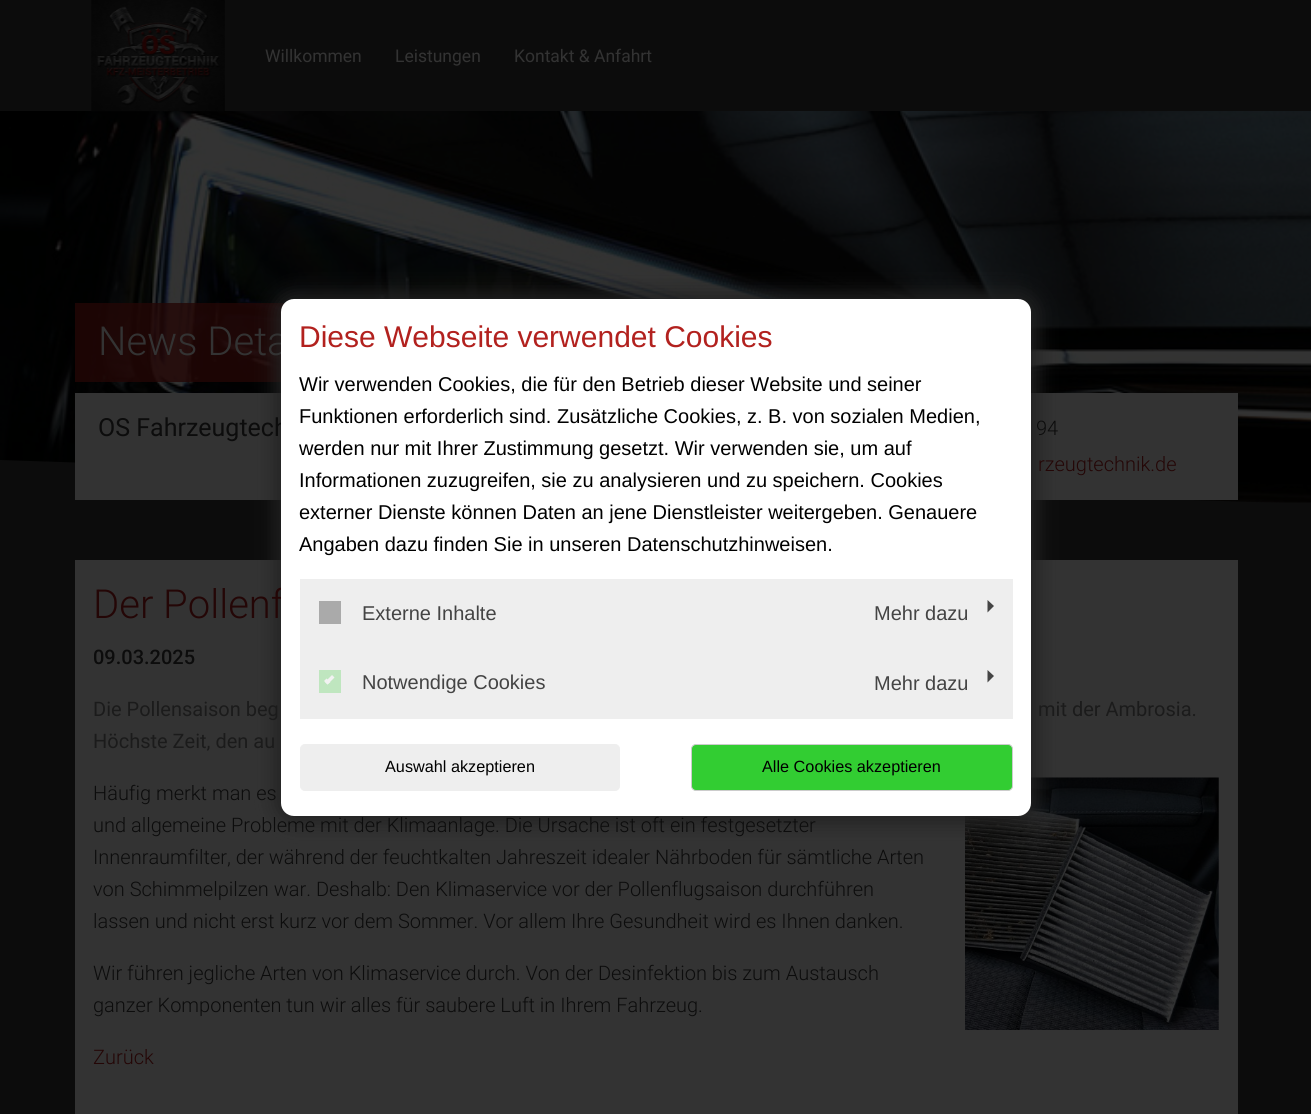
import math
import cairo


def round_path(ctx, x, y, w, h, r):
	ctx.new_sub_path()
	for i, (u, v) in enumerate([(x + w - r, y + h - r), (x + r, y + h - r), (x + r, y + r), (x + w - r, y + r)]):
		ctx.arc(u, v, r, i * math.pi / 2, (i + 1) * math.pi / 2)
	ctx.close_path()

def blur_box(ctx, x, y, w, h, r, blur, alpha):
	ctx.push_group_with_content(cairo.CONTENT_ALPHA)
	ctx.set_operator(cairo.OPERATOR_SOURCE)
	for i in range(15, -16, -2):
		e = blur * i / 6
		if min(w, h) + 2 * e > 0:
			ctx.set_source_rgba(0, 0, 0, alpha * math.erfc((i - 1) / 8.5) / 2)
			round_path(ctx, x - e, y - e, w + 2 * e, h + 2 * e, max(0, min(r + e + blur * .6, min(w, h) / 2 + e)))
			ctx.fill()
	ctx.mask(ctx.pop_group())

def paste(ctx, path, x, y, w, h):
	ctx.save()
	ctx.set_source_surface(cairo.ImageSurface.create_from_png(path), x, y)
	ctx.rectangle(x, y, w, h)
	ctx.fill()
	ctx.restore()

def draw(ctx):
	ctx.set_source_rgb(0.047, 0.047, 0.047)
	ctx.paint()
	paste(ctx, 'media/2.png', 0, 111, 1311, 392)
	paste(ctx, 'media/1.png', 91, 0, 134, 112)
	ctx.select_font_face('Roboto')
	ctx.set_font_size(17.5)
	ctx.set_source_rgb(0.2, 0.2, 0.2)
	for x, y, s in [
		(265, 62, 'Willkommen'),
		(395, 62, 'Leistungen'),
		(514, 62, 'Kontakt & Anfahrt'),
	]:
		ctx.move_to(x, y)
		ctx.show_text(s)
	ctx.set_source_rgb(0.047, 0.047, 0.047)
	ctx.new_path()
	ctx.move_to(0, 504)
	ctx.line_to(0, 460)
	ctx.line_to(1311, 504)
	ctx.close_path()
	ctx.fill()
	ctx.save()
	ctx.rectangle(75, 303, 639, 80)
	ctx.clip()
	ctx.set_source_rgba(0.141, 0.027, 0.024, 0.8)
	ctx.new_path()
	ctx.move_to(75, 302)
	ctx.line_to(714, 302)
	ctx.line_to(677, 382)
	ctx.line_to(75, 382)
	ctx.close_path()
	ctx.fill()
	ctx.restore()
	ctx.set_source_rgb(0.2, 0.2, 0.2)
	ctx.rectangle(75, 393, 1163, 107)
	ctx.fill()
	ctx.rectangle(75, 560, 1163, 554)
	ctx.fill()
	paste(ctx, 'media/3.png', 965, 777, 254, 253)
	ctx.set_source_rgb(0.133, 0.133, 0.133)
	blur_box(ctx, 275, 293, 763, 530, 19, 9.5, 1)
	ctx.select_font_face('Roboto Light')
	ctx.set_font_size(40)
	ctx.set_source_rgb(0.2, 0.2, 0.2)
	ctx.move_to(98, 355)
	ctx.show_text('News Deta')
	ctx.select_font_face('Roboto')
	ctx.set_font_size(25)
	ctx.set_source_rgb(0.047, 0.047, 0.047)
	ctx.move_to(98, 436)
	ctx.show_text('OS Fahrzeugtech')
	ctx.select_font_face('Roboto Light')
	ctx.set_font_size(40)
	ctx.set_source_rgb(0.141, 0.027, 0.024)
	ctx.move_to(93, 618)
	ctx.show_text('Der Pollenf')
	ctx.set_source_rgb(1, 1, 1)
	round_path(ctx, 281, 299, 750, 517, 13)
	ctx.fill()
	ctx.select_font_face('Liberation Sans')
	ctx.set_font_size(30)
	ctx.set_source_rgb(0.698, 0.129, 0.118)
	ctx.move_to(299, 347)
	ctx.show_text('Diese Webseite verwendet Cookies')
	ctx.set_font_size(20)
	ctx.set_source_rgb(0, 0, 0)
	for x, y, s in [
		(299, 391, 'Wir verwenden Cookies, die für den Betrieb dieser Website und seiner'),
		(299, 423, 'Funktionen erforderlich sind. Zusätzliche Cookies, z. B. von sozialen Medien,'),
		(299, 455, 'werden nur mit Ihrer Zustimmung gesetzt. Wir verwenden sie, um auf'),
		(299, 487, 'Informationen zuzugreifen, sie zu analysieren und zu speichern. Cookies'),
		(299, 519, 'externer Dienste können Daten an jene Dienstleister weitergeben. Genauere'),
		(299, 551, 'Angaben dazu finden Sie in unseren Datenschutzhinweisen.'),
	]:
		ctx.move_to(x, y)
		ctx.show_text(s)
	ctx.set_source_rgb(0.933, 0.933, 0.933)
	ctx.rectangle(300, 579, 713, 140)
	ctx.fill()
	ctx.set_source_rgb(0.667, 0.667, 0.667)
	ctx.rectangle(319, 601, 22, 23)
	ctx.fill()
	ctx.set_source_rgb(0.267, 0.267, 0.267)
	ctx.move_to(362, 620)
	ctx.show_text('Externe Inhalte')
	ctx.move_to(874, 620)
	ctx.show_text('Mehr dazu')
	ctx.new_path()
	ctx.move_to(987.5, 612.5)
	ctx.line_to(987.5, 600)
	ctx.line_to(994, 606)
	ctx.close_path()
	ctx.fill()
	ctx.set_source_rgb(0.749, 0.902, 0.749)
	ctx.rectangle(319, 670, 22, 23)
	ctx.fill()
	ctx.set_source_rgb(0.949, 0.949, 0.949)
	ctx.new_path()
	ctx.move_to(332, 675)
	ctx.line_to(334.5, 677.5)
	ctx.line_to(327.5, 684.5)
	ctx.line_to(325, 682)
	ctx.close_path()
	ctx.fill()
	ctx.new_path()
	ctx.move_to(326.5, 678.5)
	ctx.line_to(330.5, 682)
	ctx.line_to(327.5, 684.5)
	ctx.line_to(324, 681)
	ctx.close_path()
	ctx.fill()
	ctx.set_source_rgb(0.267, 0.267, 0.267)
	ctx.move_to(362, 689)
	ctx.show_text('Notwendige Cookies')
	ctx.move_to(874, 690)
	ctx.show_text('Mehr dazu')
	ctx.new_path()
	ctx.move_to(987.5, 682.5)
	ctx.line_to(987.5, 670)
	ctx.line_to(994, 676)
	ctx.close_path()
	ctx.fill()
	ctx.set_source_rgb(0.933, 0.933, 0.933)
	round_path(ctx, 300.5, 744.5, 319, 46, 4.5)
	ctx.fill_preserve()
	ctx.set_line_width(1)
	ctx.stroke()
	ctx.set_font_size(16.25)
	ctx.set_source_rgb(0, 0, 0)
	ctx.move_to(385, 772)
	ctx.show_text('Auswahl akzeptieren')
	ctx.set_source_rgb(0.196, 0.804, 0.196)
	round_path(ctx, 691.5, 744.5, 321, 46, 4.5)
	ctx.fill_preserve()
	ctx.set_source_rgb(0.8, 0.8, 0.8)
	ctx.stroke()
	ctx.set_source_rgb(0, 0, 0)
	ctx.move_to(762, 772)
	ctx.show_text('Alle Cookies akzeptieren')
	ctx.select_font_face('Roboto Light')
	ctx.set_font_size(20)
	ctx.set_source_rgb(0.047, 0.047, 0.047)
	ctx.move_to(1036, 435)
	ctx.show_text('94')
	ctx.set_source_rgb(0.141, 0.027, 0.024)
	ctx.move_to(1038, 471)
	ctx.show_text('rzeugtechnik.de')
	ctx.select_font_face('Roboto Medium')
	ctx.set_source_rgb(0.047, 0.047, 0.047)
	ctx.move_to(93, 664)
	ctx.show_text('09.03.2025')
	ctx.select_font_face('Roboto')
	ctx.set_source_rgb(0.106, 0.106, 0.106)
	for x, y, s in [
		(93, 716, 'Die Pollensaison beg'),
		(1038, 716, 'mit der Ambrosia.'),
		(93, 748, 'Höchste Zeit, den au'),
	]:
		ctx.move_to(x, y)
		ctx.show_text(s)
	ctx.select_font_face('Roboto Light')
	ctx.set_source_rgb(0.047, 0.047, 0.047)
	for x, y, s in [
		(93, 800, 'Häufig merkt man es'),
		(93, 832, 'und allgemeine Probleme mit der Klimaanlage. Die Ursache ist oft ein festgesetzter'),
		(93, 864, 'Innenraumfilter, der während der feuchtkalten Jahreszeit idealer Nährboden für sämtliche Arten'),
		(93, 896, 'von Schimmelpilzen war. Deshalb: Den Klimaservice vor der Pollenflugsaison durchführen'),
		(93, 928, 'lassen und nicht erst kurz vor dem Sommer. Vor allem Ihre Gesundheit wird es Ihnen danken.'),
		(93, 980, 'Wir führen jegliche Arten von Klimaservice durch. Von der Desinfektion bis zum Austausch'),
		(93, 1012, 'ganzer Komponenten tun wir alles für saubere Luft in Ihrem Fahrzeug.'),
	]:
		ctx.move_to(x, y)
		ctx.show_text(s)
	ctx.set_source_rgb(0.141, 0.027, 0.024)
	ctx.move_to(93, 1064)
	ctx.show_text('Zurück')


surface = cairo.ImageSurface(cairo.FORMAT_RGB24, 1311, 1114)
ctx = cairo.Context(surface)
options = cairo.FontOptions()
options.set_hint_metrics(cairo.HINT_METRICS_OFF)
options.set_hint_style(cairo.HINT_STYLE_NONE)
ctx.set_font_options(options)
ctx.set_miter_limit(4)
draw(ctx)
surface.write_to_png('image.png')
